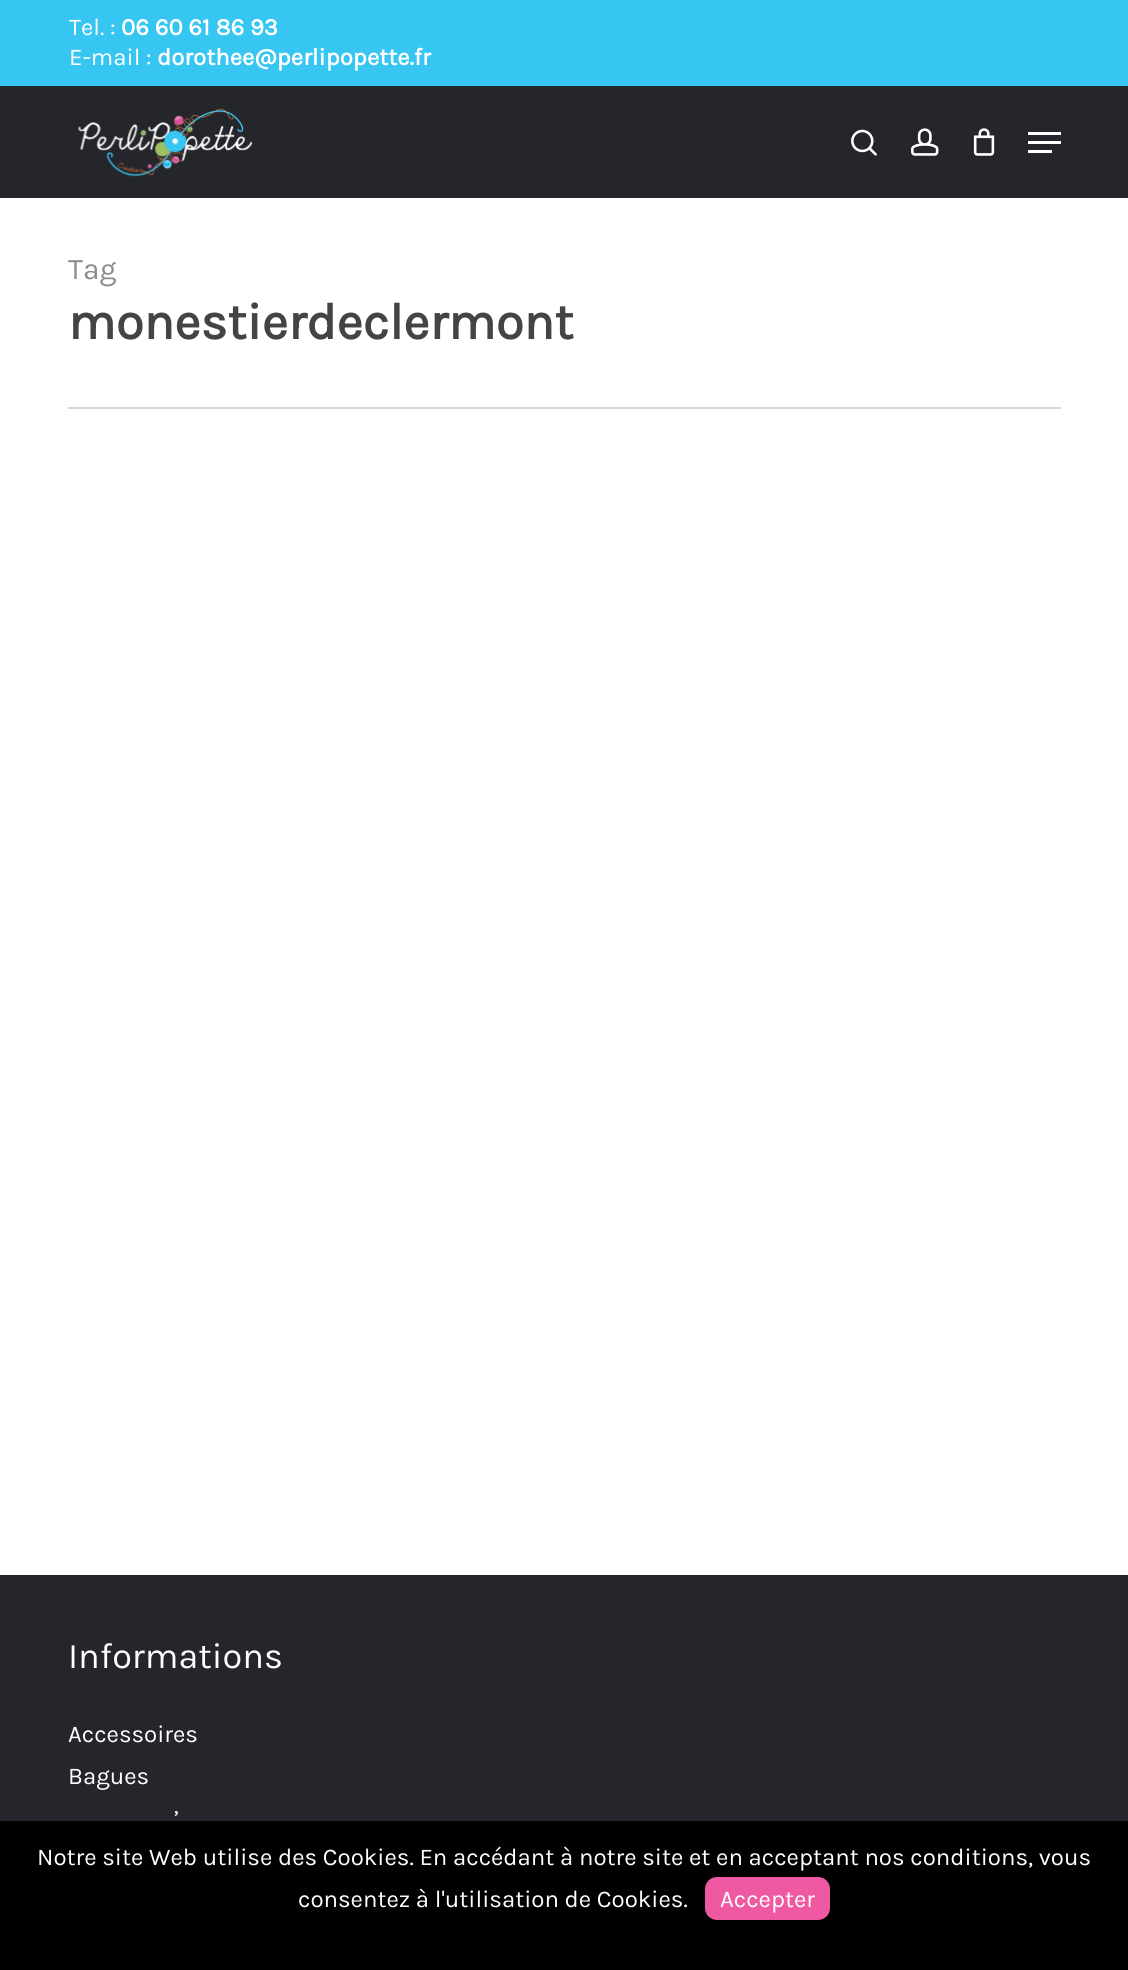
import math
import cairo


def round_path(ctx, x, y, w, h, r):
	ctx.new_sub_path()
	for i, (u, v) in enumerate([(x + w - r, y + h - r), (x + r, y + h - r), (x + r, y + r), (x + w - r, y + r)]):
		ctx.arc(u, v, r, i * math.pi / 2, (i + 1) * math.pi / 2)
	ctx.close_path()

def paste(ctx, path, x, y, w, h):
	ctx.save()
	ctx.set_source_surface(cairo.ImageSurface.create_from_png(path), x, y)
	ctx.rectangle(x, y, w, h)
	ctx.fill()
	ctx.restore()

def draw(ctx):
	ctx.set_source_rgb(1, 1, 1)
	ctx.paint()
	ctx.set_source_rgb(0.216, 0.776, 0.949)
	ctx.rectangle(0, 0, 1128, 86)
	ctx.fill()
	ctx.select_font_face('Karla')
	ctx.set_font_size(24)
	ctx.set_source_rgb(1, 1, 1)
	ctx.move_to(69, 35)
	ctx.show_text('Tel. :')
	ctx.select_font_face('Karla', cairo.FONT_SLANT_NORMAL, cairo.FONT_WEIGHT_BOLD)
	ctx.move_to(121, 35)
	ctx.show_text('06 60 61 86 93')
	ctx.select_font_face('Karla')
	ctx.move_to(69, 65)
	ctx.show_text('E-mail :')
	ctx.select_font_face('Karla', cairo.FONT_SLANT_NORMAL, cairo.FONT_WEIGHT_BOLD)
	ctx.move_to(157, 65)
	ctx.show_text('dorothee@perlipopette.fr')
	ctx.set_source_rgb(0.145, 0.149, 0.169)
	ctx.rectangle(0, 86, 1128, 112)
	ctx.fill()
	paste(ctx, 'media/1.png', 78, 108, 175, 69)
	paste(ctx, 'media/2.png', 851, 129, 26, 27)
	paste(ctx, 'media/3.png', 911, 128, 28, 28)
	paste(ctx, 'media/4.png', 973, 128, 22, 28)
	ctx.set_source_rgb(1, 1, 1)
	ctx.rectangle(1028, 132, 33, 3)
	ctx.rectangle(1028, 150, 24, 3)
	ctx.rectangle(1028, 141, 33, 3)
	ctx.fill()
	ctx.set_source_rgb(0.851, 0.851, 0.851)
	ctx.rectangle(68, 407, 993, 2)
	ctx.fill()
	ctx.select_font_face('Karla')
	ctx.set_font_size(30)
	ctx.set_source_rgb(0.549, 0.549, 0.549)
	ctx.move_to(68, 279)
	ctx.show_text('Tag')
	ctx.select_font_face('Karla', cairo.FONT_SLANT_NORMAL, cairo.FONT_WEIGHT_BOLD)
	ctx.set_font_size(51)
	ctx.set_source_rgb(0.267, 0.267, 0.267)
	ctx.move_to(68, 339)
	ctx.show_text('monestierdeclermont')
	ctx.set_source_rgb(0.145, 0.149, 0.169)
	ctx.rectangle(0, 1575, 1128, 246)
	ctx.fill()
	ctx.select_font_face('Karla')
	ctx.set_font_size(36)
	ctx.set_source_rgb(1, 1, 1)
	ctx.move_to(68, 1668)
	ctx.show_text('Informations')
	ctx.set_font_size(24)
	for x, y, s in [
		(68, 1742, 'Accessoires'),
		(68, 1784, 'Bagues'),
		(174, 1826, '’'),
	]:
		ctx.move_to(x, y)
		ctx.show_text(s)
	ctx.set_source_rgb(0, 0, 0)
	ctx.rectangle(0, 1821, 1128, 149)
	ctx.fill()
	ctx.set_source_rgb(1, 1, 1)
	ctx.move_to(37, 1865)
	ctx.show_text('Notre site Web utilise des Cookies. En accédant à notre site et en acceptant nos conditions, vous')
	ctx.move_to(298, 1907)
	ctx.show_text('consentez à l\'utilisation de Cookies.')
	ctx.set_source_rgb(0.937, 0.349, 0.631)
	round_path(ctx, 705, 1877, 125, 43, 12)
	ctx.fill()
	ctx.set_source_rgb(1, 1, 1)
	ctx.move_to(720, 1907)
	ctx.show_text('Accepter')


surface = cairo.ImageSurface(cairo.FORMAT_RGB24, 1128, 1970)
ctx = cairo.Context(surface)
options = cairo.FontOptions()
options.set_hint_metrics(cairo.HINT_METRICS_OFF)
options.set_hint_style(cairo.HINT_STYLE_NONE)
ctx.set_font_options(options)
ctx.set_miter_limit(4)
draw(ctx)
surface.write_to_png('image.png')
